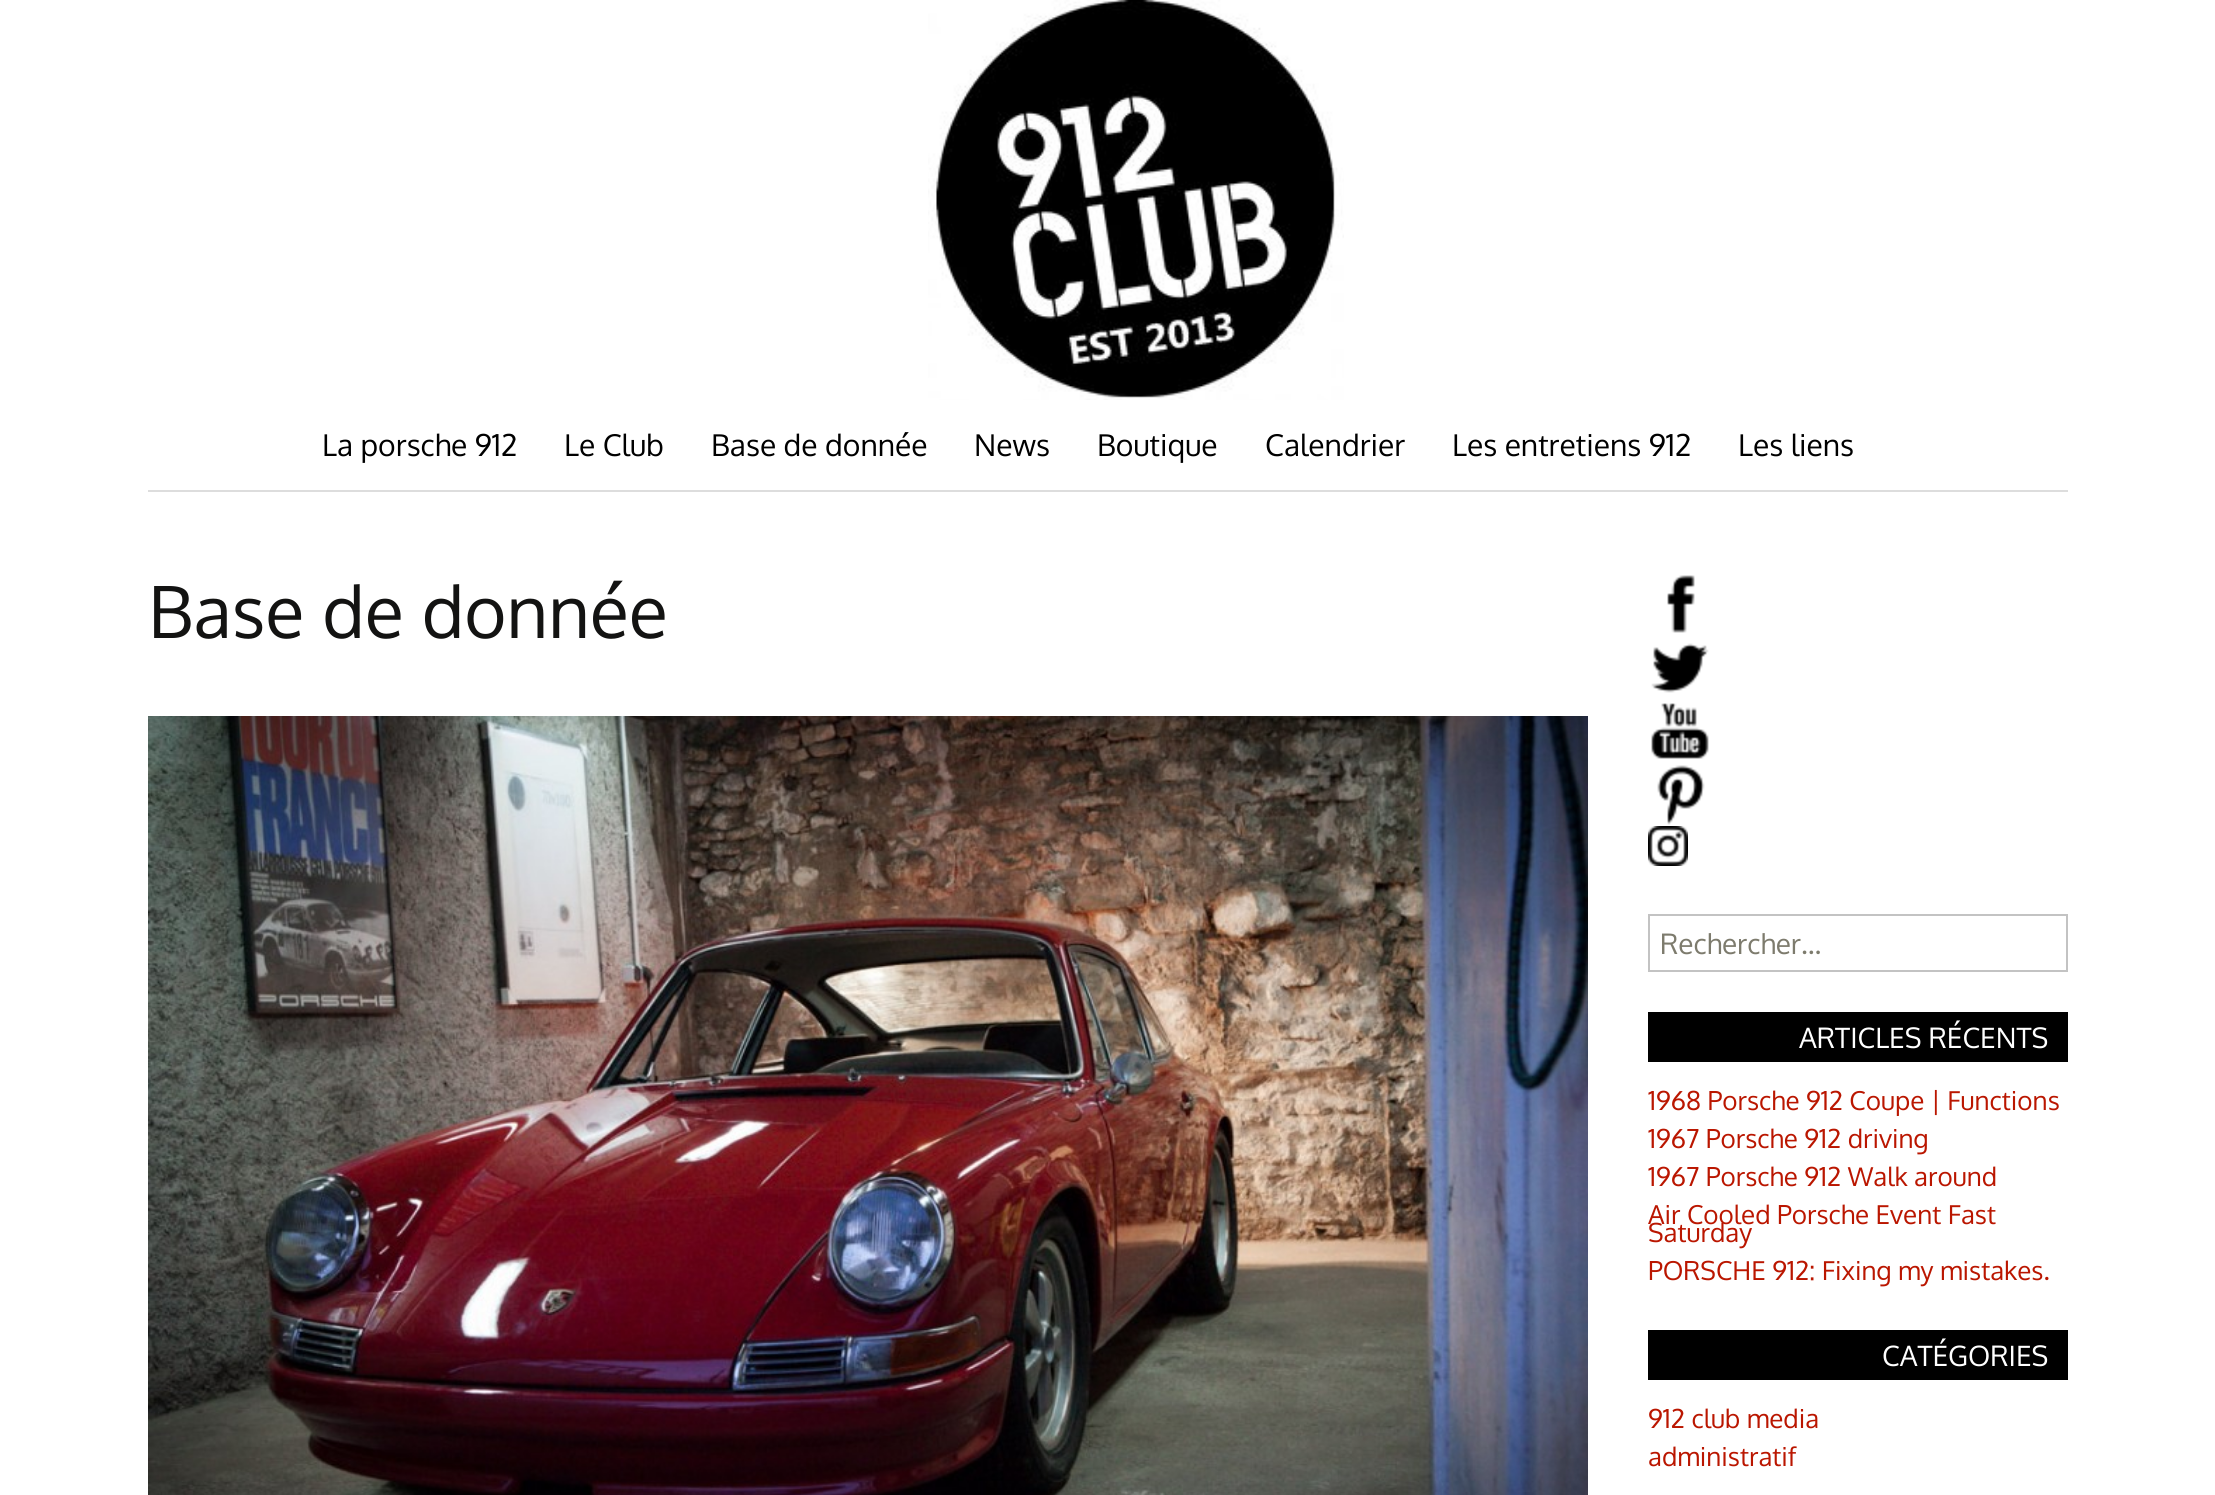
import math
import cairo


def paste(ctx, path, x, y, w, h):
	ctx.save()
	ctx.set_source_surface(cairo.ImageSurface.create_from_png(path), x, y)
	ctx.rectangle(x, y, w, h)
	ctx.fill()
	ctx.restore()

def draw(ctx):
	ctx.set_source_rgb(1, 1, 1)
	ctx.paint()
	paste(ctx, 'media/1.png', 928, 0, 416, 400)
	ctx.select_font_face('Oxygen')
	ctx.set_font_size(30)
	ctx.set_source_rgb(0, 0, 0)
	for x, y, s in [
		(322, 456, 'La porsche 912'),
		(564, 456, 'Le Club'),
		(711, 456, 'Base de donnée'),
		(974, 456, 'News'),
		(1097, 456, 'Boutique'),
		(1265, 456, 'Calendrier'),
		(1452, 456, 'Les entretiens 912'),
		(1738, 456, 'Les liens'),
	]:
		ctx.move_to(x, y)
		ctx.show_text(s)
	ctx.set_source_rgb(0.867, 0.867, 0.867)
	ctx.rectangle(148, 490, 1920, 2)
	ctx.fill()
	ctx.set_font_size(72)
	ctx.set_source_rgb(0.078, 0.078, 0.071)
	ctx.move_to(148, 638)
	ctx.show_text('Base de donnée')
	paste(ctx, 'media/2.png', 148, 716, 1440, 779)
	paste(ctx, 'media/3.png', 1667, 575, 28, 58)
	paste(ctx, 'media/4.png', 1651, 643, 58, 50)
	paste(ctx, 'media/5.png', 1651, 703, 58, 56)
	paste(ctx, 'media/6.png', 1657, 765, 48, 60)
	paste(ctx, 'media/7.png', 1648, 826, 40, 40)
	ctx.rectangle(1649, 915, 418, 56)
	ctx.set_source_rgb(0.765, 0.765, 0.765)
	ctx.stroke()
	ctx.set_font_size(28)
	ctx.set_source_rgb(0.49, 0.482, 0.427)
	ctx.move_to(1660, 954)
	ctx.show_text('Rechercher…')
	ctx.set_source_rgb(0, 0, 0)
	ctx.rectangle(1648, 1012, 420, 50)
	ctx.fill()
	ctx.set_source_rgb(1, 1, 1)
	ctx.move_to(1799, 1048)
	ctx.show_text('ARTICLES RÉCENTS')
	ctx.set_font_size(26)
	ctx.set_source_rgb(0.729, 0.086, 0)
	for x, y, s in [
		(1648, 1110, '1968 Porsche 912 Coupe | Functions'),
		(1648, 1148, '1967 Porsche 912 driving'),
		(1648, 1186, '1967 Porsche 912 Walk around'),
		(1648, 1224, 'Air Cooled Porsche Event Fast'),
		(1648, 1242, 'Saturday'),
		(1648, 1280, 'PORSCHE 912: Fixing my mistakes.'),
	]:
		ctx.move_to(x, y)
		ctx.show_text(s)
	ctx.set_source_rgb(0, 0, 0)
	ctx.rectangle(1648, 1330, 420, 50)
	ctx.fill()
	ctx.set_font_size(28)
	ctx.set_source_rgb(1, 1, 1)
	ctx.move_to(1882, 1366)
	ctx.show_text('CATÉGORIES')
	ctx.set_font_size(26)
	ctx.set_source_rgb(0.729, 0.086, 0)
	ctx.move_to(1648, 1428)
	ctx.show_text('912 club media')
	ctx.move_to(1648, 1466)
	ctx.show_text('administratif')


surface = cairo.ImageSurface(cairo.FORMAT_RGB24, 2215, 1495)
ctx = cairo.Context(surface)
options = cairo.FontOptions()
options.set_hint_metrics(cairo.HINT_METRICS_OFF)
options.set_hint_style(cairo.HINT_STYLE_NONE)
ctx.set_font_options(options)
ctx.set_miter_limit(4)
draw(ctx)
surface.write_to_png('image.png')
